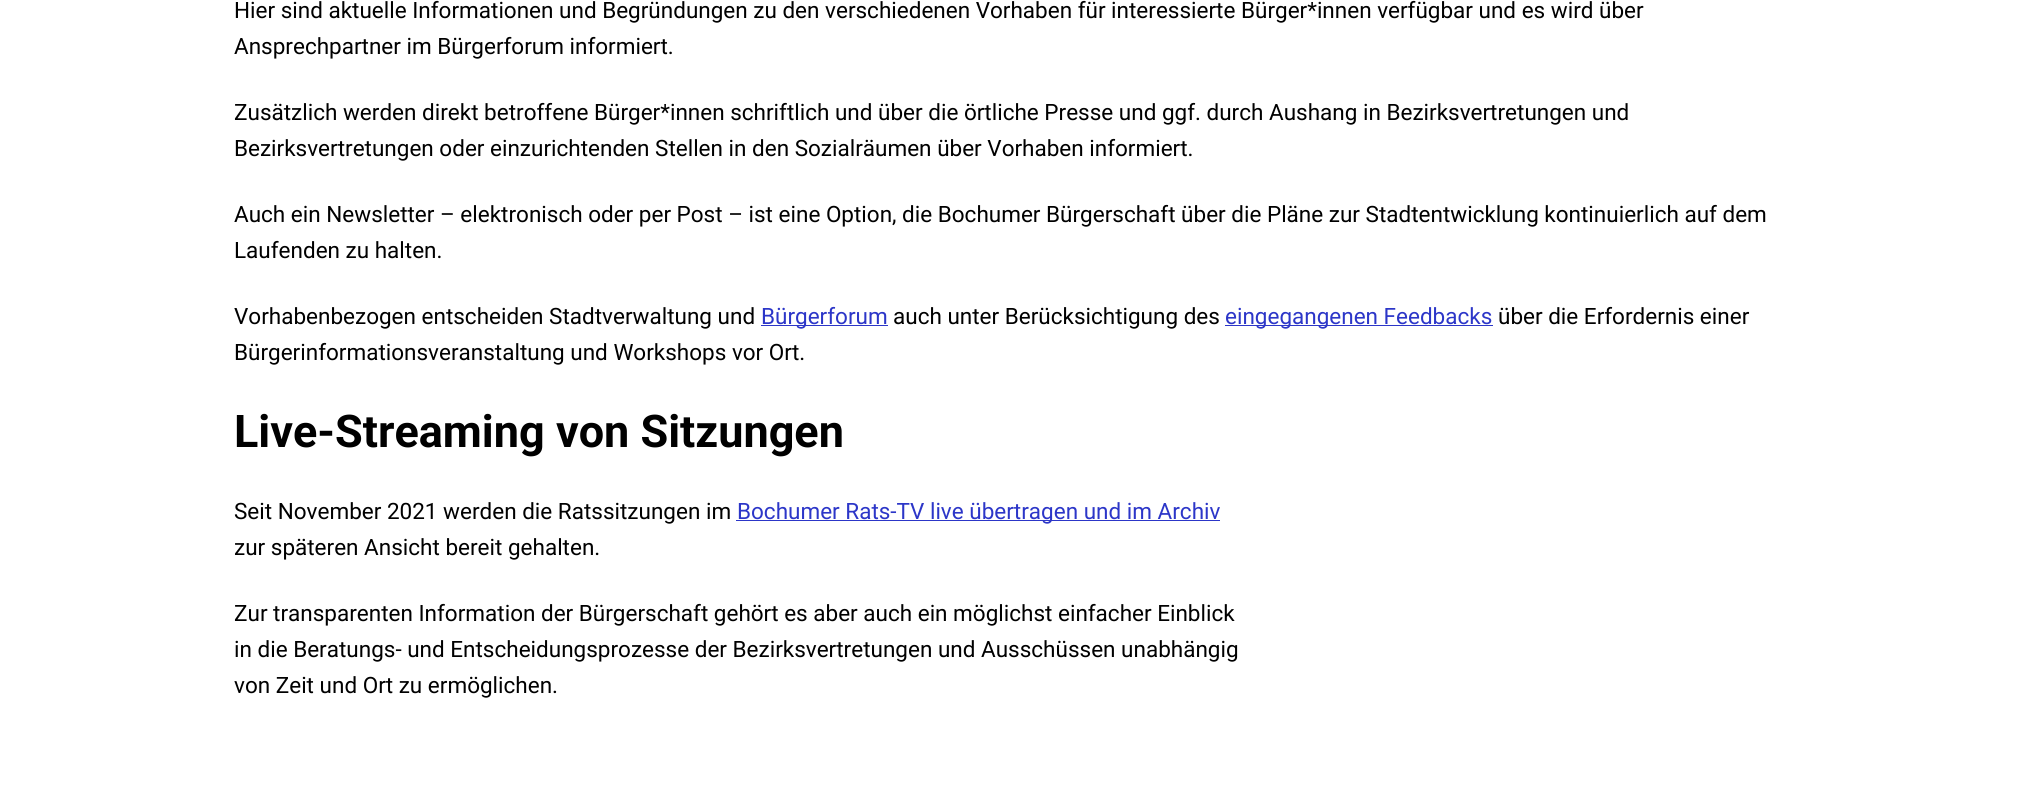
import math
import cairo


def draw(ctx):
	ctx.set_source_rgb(1, 1, 1)
	ctx.paint()
	ctx.select_font_face('Roboto')
	ctx.set_font_size(22.5)
	ctx.set_source_rgb(0, 0, 0)
	for x, y, s in [
		(234, 18, 'Hier sind aktuelle Informationen und Begründungen zu den verschiedenen Vorhaben für interessierte Bürger*innen verfügbar und es wird über'),
		(234, 54, 'Ansprechpartner im Bürgerforum informiert.'),
		(234, 120, 'Zusätzlich werden direkt betroffene Bürger*innen schriftlich und über die örtliche Presse und ggf. durch Aushang in Bezirksvertretungen und'),
		(234, 156, 'Bezirksvertretungen oder einzurichtenden Stellen in den Sozialräumen über Vorhaben informiert.'),
		(234, 222, 'Auch ein Newsletter – elektronisch oder per Post – ist eine Option, die Bochumer Bürgerschaft über die Pläne zur Stadtentwicklung kontinuierlich auf dem'),
		(234, 258, 'Laufenden zu halten.'),
		(234, 324, 'Vorhabenbezogen entscheiden Stadtverwaltung und'),
	]:
		ctx.move_to(x, y)
		ctx.show_text(s)
	ctx.set_source_rgb(0.173, 0.212, 0.784)
	ctx.rectangle(761, 325, 127, 1)
	ctx.fill()
	ctx.move_to(761, 324)
	ctx.show_text('Bürgerforum')
	ctx.set_source_rgb(0, 0, 0)
	ctx.move_to(893, 324)
	ctx.show_text('auch unter Berücksichtigung des')
	ctx.set_source_rgb(0.173, 0.212, 0.784)
	ctx.rectangle(1225, 325, 268, 1)
	ctx.fill()
	ctx.move_to(1225, 324)
	ctx.show_text('eingegangenen Feedbacks')
	ctx.set_source_rgb(0, 0, 0)
	ctx.move_to(1498, 324)
	ctx.show_text('über die Erfordernis einer')
	ctx.move_to(234, 360)
	ctx.show_text('Bürgerinformationsveranstaltung und Workshops vor Ort.')
	ctx.select_font_face('Roboto', cairo.FONT_SLANT_NORMAL, cairo.FONT_WEIGHT_BOLD)
	ctx.set_font_size(45)
	ctx.move_to(234, 447)
	ctx.show_text('Live-Streaming von Sitzungen')
	ctx.select_font_face('Roboto')
	ctx.set_font_size(22.5)
	ctx.move_to(234, 519)
	ctx.show_text('Seit November 2021 werden die Ratssitzungen im')
	ctx.set_source_rgb(0.173, 0.212, 0.784)
	ctx.rectangle(736, 520, 484, 1)
	ctx.fill()
	ctx.move_to(737, 519)
	ctx.show_text('Bochumer Rats-TV live übertragen und im Archiv')
	ctx.set_source_rgb(0, 0, 0)
	for x, y, s in [
		(234, 555, 'zur späteren Ansicht bereit gehalten.'),
		(234, 621, 'Zur transparenten Information der Bürgerschaft gehört es aber auch ein möglichst einfacher Einblick'),
		(234, 657, 'in die Beratungs- und Entscheidungsprozesse der Bezirksvertretungen und Ausschüssen unabhängig'),
		(234, 693, 'von Zeit und Ort zu ermöglichen.'),
	]:
		ctx.move_to(x, y)
		ctx.show_text(s)


surface = cairo.ImageSurface(cairo.FORMAT_RGB24, 2021, 786)
ctx = cairo.Context(surface)
options = cairo.FontOptions()
options.set_hint_metrics(cairo.HINT_METRICS_OFF)
options.set_hint_style(cairo.HINT_STYLE_NONE)
ctx.set_font_options(options)
ctx.set_miter_limit(4)
draw(ctx)
surface.write_to_png('image.png')
